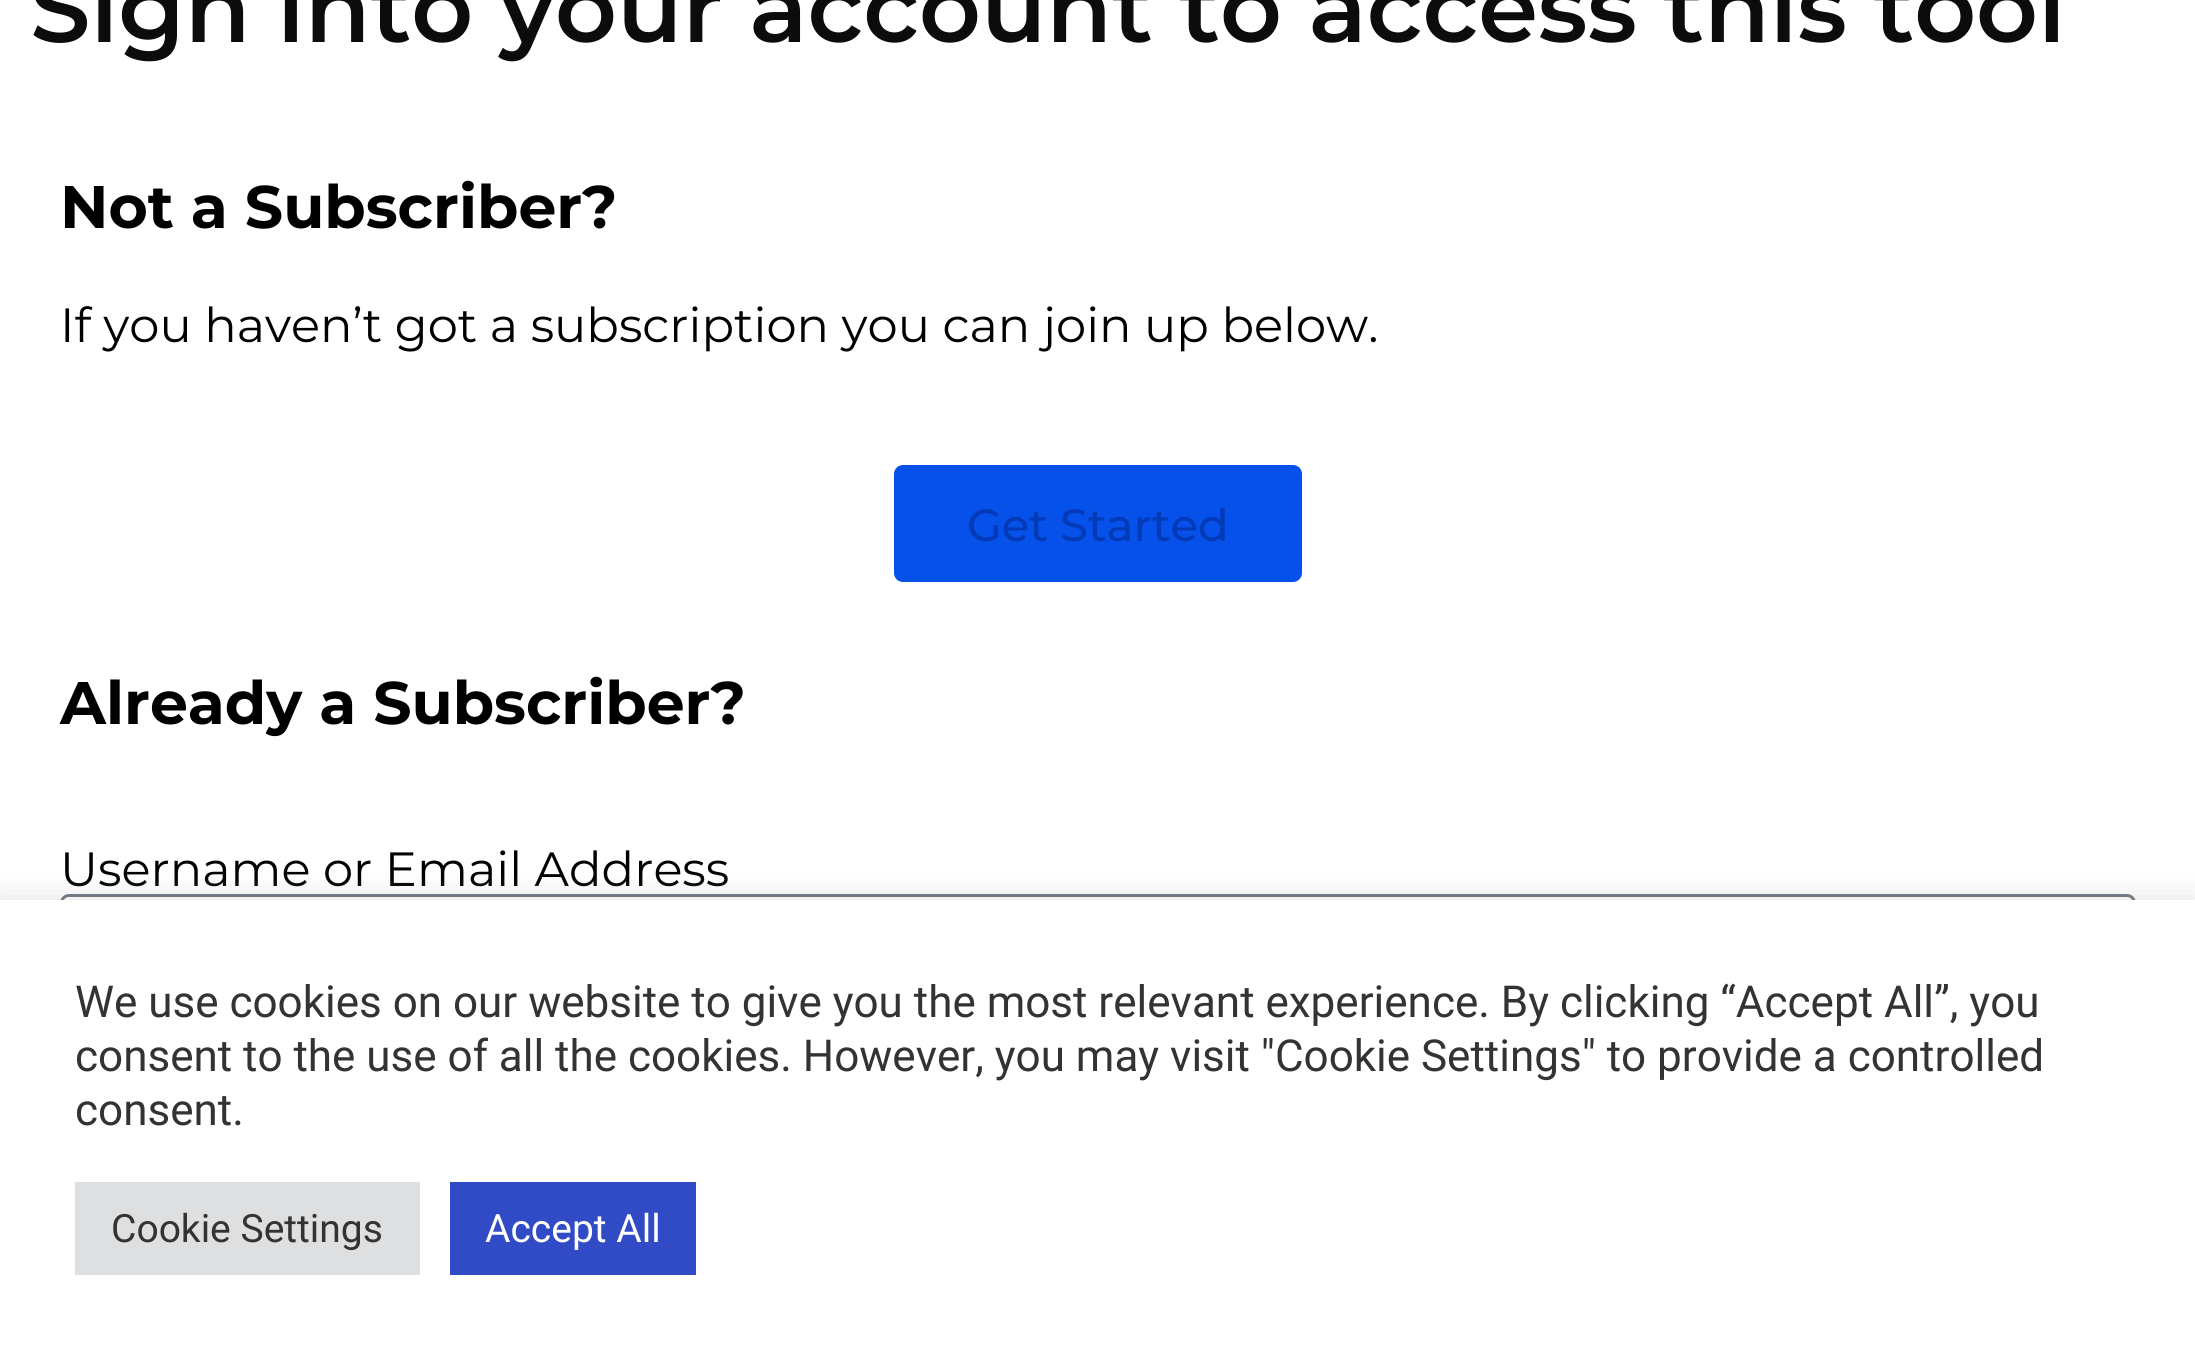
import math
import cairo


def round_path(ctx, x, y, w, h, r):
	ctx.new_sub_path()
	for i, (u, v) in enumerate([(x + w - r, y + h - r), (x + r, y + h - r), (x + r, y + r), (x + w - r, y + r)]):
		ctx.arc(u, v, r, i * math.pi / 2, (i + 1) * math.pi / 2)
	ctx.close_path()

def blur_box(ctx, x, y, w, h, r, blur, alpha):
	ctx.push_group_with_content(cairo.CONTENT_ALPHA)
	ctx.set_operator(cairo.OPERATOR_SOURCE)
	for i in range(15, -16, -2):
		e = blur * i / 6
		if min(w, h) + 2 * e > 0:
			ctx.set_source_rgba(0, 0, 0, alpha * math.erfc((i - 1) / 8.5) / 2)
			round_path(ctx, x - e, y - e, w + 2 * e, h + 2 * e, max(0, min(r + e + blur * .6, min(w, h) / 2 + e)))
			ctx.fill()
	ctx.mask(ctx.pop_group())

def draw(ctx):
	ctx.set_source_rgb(1, 1, 1)
	ctx.paint()
	ctx.select_font_face('Montserrat SemiBold')
	ctx.set_font_size(96)
	ctx.set_source_rgb(0.047, 0.047, 0.047)
	ctx.move_to(30, 42)
	ctx.show_text('Sign into your account to access this tool')
	ctx.select_font_face('Montserrat', cairo.FONT_SLANT_NORMAL, cairo.FONT_WEIGHT_BOLD)
	ctx.set_font_size(60)
	ctx.set_source_rgb(0, 0, 0)
	ctx.move_to(60, 228)
	ctx.show_text('Not a Subscriber?')
	ctx.select_font_face('Montserrat')
	ctx.set_font_size(48)
	ctx.move_to(60, 342)
	ctx.show_text('If you haven’t got a subscription you can join up below.')
	ctx.set_source_rgb(0.02, 0.318, 0.914)
	round_path(ctx, 894, 465, 408, 117, 9)
	ctx.fill()
	ctx.select_font_face('Montserrat Medium')
	ctx.set_font_size(45)
	ctx.set_source_rgb(0.008, 0.227, 0.722)
	ctx.move_to(967, 541)
	ctx.show_text('Get Started')
	ctx.select_font_face('Montserrat', cairo.FONT_SLANT_NORMAL, cairo.FONT_WEIGHT_BOLD)
	ctx.set_font_size(60)
	ctx.set_source_rgb(0, 0, 0)
	ctx.move_to(60, 724)
	ctx.show_text('Already a Subscriber?')
	ctx.select_font_face('Montserrat')
	ctx.set_font_size(48)
	ctx.move_to(60, 886)
	ctx.show_text('Username or Email Address')
	round_path(ctx, 61.5, 895.5, 2073, 117, 7.5)
	ctx.set_source_rgb(0.412, 0.447, 0.49)
	ctx.set_line_width(3)
	ctx.stroke()
	ctx.set_source_rgb(0.675, 0.671, 0.671)
	blur_box(ctx, 0, 897, 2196, 465, 0, 15, 0.3)
	ctx.set_source_rgb(1, 1, 1)
	ctx.rectangle(0, 900, 2195, 465)
	ctx.fill()
	ctx.select_font_face('Roboto')
	ctx.set_font_size(44)
	ctx.set_source_rgb(0.2, 0.2, 0.2)
	for x, y, s in [
		(75, 1017, 'We use cookies on our website to give you the most relevant experience. By clicking “Accept All”, you'),
		(75, 1071, 'consent to the use of all the cookies. However, you may visit "Cookie Settings" to provide a controlled'),
		(75, 1125, 'consent.'),
	]:
		ctx.move_to(x, y)
		ctx.show_text(s)
	ctx.set_source_rgb(0.871, 0.875, 0.878)
	ctx.rectangle(75, 1182, 345, 93)
	ctx.fill()
	ctx.set_font_size(39)
	ctx.set_source_rgb(0.2, 0.2, 0.2)
	ctx.move_to(111, 1242)
	ctx.show_text('Cookie Settings')
	ctx.set_source_rgb(0.192, 0.29, 0.776)
	ctx.rectangle(450, 1182, 246, 93)
	ctx.fill()
	ctx.set_source_rgb(1, 1, 1)
	ctx.move_to(485, 1242)
	ctx.show_text('Accept All')


surface = cairo.ImageSurface(cairo.FORMAT_RGB24, 2195, 1365)
ctx = cairo.Context(surface)
options = cairo.FontOptions()
options.set_hint_metrics(cairo.HINT_METRICS_OFF)
options.set_hint_style(cairo.HINT_STYLE_NONE)
ctx.set_font_options(options)
ctx.set_miter_limit(4)
draw(ctx)
surface.write_to_png('image.png')
